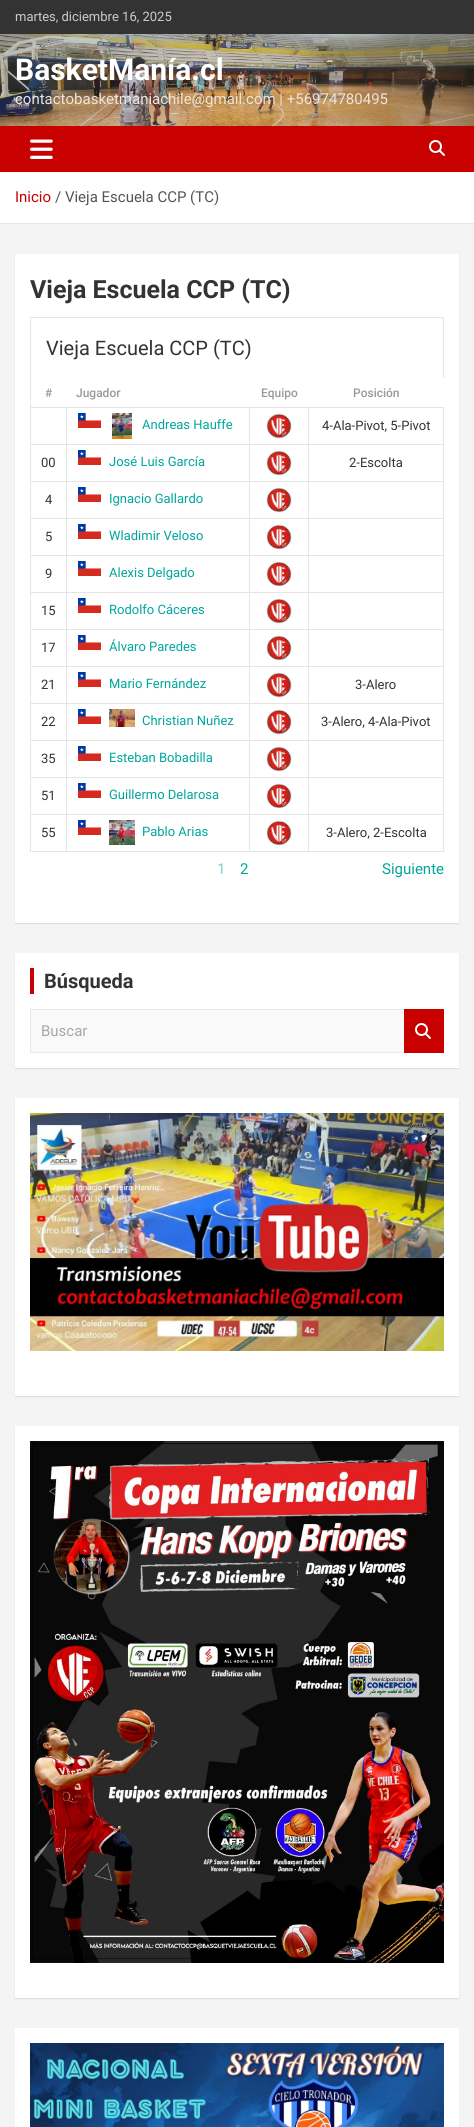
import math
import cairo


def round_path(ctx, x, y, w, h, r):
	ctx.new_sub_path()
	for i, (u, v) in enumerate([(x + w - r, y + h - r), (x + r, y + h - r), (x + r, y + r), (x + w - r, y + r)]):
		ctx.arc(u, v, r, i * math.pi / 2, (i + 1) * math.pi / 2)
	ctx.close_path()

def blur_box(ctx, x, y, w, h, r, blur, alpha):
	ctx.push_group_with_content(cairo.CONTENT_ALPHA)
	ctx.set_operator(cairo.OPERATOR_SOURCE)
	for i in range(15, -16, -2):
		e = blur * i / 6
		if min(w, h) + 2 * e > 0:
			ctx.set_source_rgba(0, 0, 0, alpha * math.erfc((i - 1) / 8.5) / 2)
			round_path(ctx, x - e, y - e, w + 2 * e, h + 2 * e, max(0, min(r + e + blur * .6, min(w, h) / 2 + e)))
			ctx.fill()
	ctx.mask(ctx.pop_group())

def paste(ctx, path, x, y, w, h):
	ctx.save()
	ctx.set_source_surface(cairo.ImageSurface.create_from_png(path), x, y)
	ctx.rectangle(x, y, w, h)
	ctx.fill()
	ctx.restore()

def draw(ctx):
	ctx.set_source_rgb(0.957, 0.957, 0.957)
	ctx.paint()
	ctx.set_source_rgb(0.2, 0.2, 0.2)
	ctx.rectangle(0, 0, 474, 34)
	ctx.fill()
	ctx.select_font_face('Roboto')
	ctx.set_font_size(13)
	ctx.set_source_rgb(0.8, 0.8, 0.8)
	ctx.move_to(15, 21)
	ctx.show_text('martes, diciembre 16, 2025')
	paste(ctx, 'media/1.png', 0, 34, 474, 92)
	ctx.select_font_face('Roboto', cairo.FONT_SLANT_NORMAL, cairo.FONT_WEIGHT_BOLD)
	ctx.set_font_size(30)
	ctx.set_source_rgb(1, 1, 1)
	ctx.move_to(15, 80)
	ctx.show_text('BasketManía.cl')
	ctx.select_font_face('Roboto')
	ctx.set_font_size(15)
	ctx.set_source_rgb(0.922, 0.894, 0.867)
	ctx.move_to(15, 104)
	ctx.show_text('contactobasketmaniachile@gmail.com | +56974780495')
	ctx.set_source_rgb(0.784, 0, 0)
	ctx.rectangle(0, 126, 474, 46)
	ctx.fill()
	paste(ctx, 'media/2.png', 30, 139, 23, 20)
	paste(ctx, 'media/3.png', 429, 140, 16, 16)
	ctx.set_source_rgb(1, 1, 1)
	ctx.rectangle(0, 172, 474, 51)
	ctx.fill()
	ctx.set_source_rgb(0.902, 0.902, 0.902)
	ctx.rectangle(0, 223, 474, 1)
	ctx.fill()
	ctx.set_source_rgb(0.784, 0, 0)
	ctx.move_to(15, 202)
	ctx.show_text('Inicio')
	ctx.set_source_rgb(0.333, 0.333, 0.333)
	ctx.move_to(55, 202)
	ctx.show_text('/ Vieja Escuela CCP (TC)')
	ctx.set_source_rgb(0, 0, 0)
	blur_box(ctx, 15, 255, 444, 669, 0, 0.5, 0.1)
	ctx.set_source_rgb(1, 1, 1)
	ctx.rectangle(15, 254, 444, 669)
	ctx.fill()
	ctx.select_font_face('Roboto', cairo.FONT_SLANT_NORMAL, cairo.FONT_WEIGHT_BOLD)
	ctx.set_font_size(25)
	ctx.set_source_rgb(0.2, 0.2, 0.2)
	ctx.move_to(30, 298)
	ctx.show_text('Vieja Escuela CCP (TC)')
	ctx.set_source_rgb(0.898, 0.898, 0.898)
	ctx.rectangle(30, 317, 414, 1)
	ctx.rectangle(443, 317, 1, 61)
	ctx.rectangle(30, 317, 1, 61)
	ctx.fill()
	ctx.select_font_face('Roboto')
	ctx.set_font_size(20)
	ctx.set_source_rgb(0.2, 0.2, 0.2)
	ctx.move_to(46, 355)
	ctx.show_text('Vieja Escuela CCP (TC)')
	ctx.set_source_rgb(0.898, 0.898, 0.898)
	ctx.rectangle(443, 408, 1, 444)
	ctx.rectangle(30, 851, 414, 1)
	ctx.rectangle(30, 378, 1, 474)
	ctx.fill()
	ctx.select_font_face('Roboto Medium')
	ctx.set_font_size(12)
	ctx.set_source_rgb(0.6, 0.6, 0.6)
	for x, y, s in [
		(45, 397, '#'),
		(76, 397, 'Jugador'),
		(261, 397, 'Equipo'),
		(353, 397, 'Posición'),
	]:
		ctx.move_to(x, y)
		ctx.show_text(s)
	ctx.set_source_rgb(0.898, 0.898, 0.898)
	ctx.rectangle(308, 407, 136, 1)
	ctx.rectangle(308, 444, 136, 1)
	ctx.rectangle(308, 481, 136, 1)
	ctx.rectangle(308, 518, 136, 1)
	ctx.rectangle(308, 555, 136, 1)
	ctx.rectangle(308, 592, 136, 1)
	ctx.rectangle(308, 629, 136, 1)
	ctx.rectangle(308, 666, 136, 1)
	ctx.rectangle(308, 703, 136, 1)
	ctx.rectangle(308, 740, 136, 1)
	ctx.rectangle(308, 777, 136, 1)
	ctx.rectangle(308, 814, 136, 1)
	ctx.rectangle(308, 814, 1, 38)
	ctx.rectangle(249, 814, 60, 1)
	ctx.rectangle(308, 777, 1, 38)
	ctx.rectangle(249, 777, 60, 1)
	ctx.rectangle(308, 740, 1, 38)
	ctx.rectangle(249, 740, 60, 1)
	ctx.rectangle(308, 703, 1, 38)
	ctx.rectangle(249, 703, 60, 1)
	ctx.rectangle(308, 666, 1, 38)
	ctx.rectangle(249, 666, 60, 1)
	ctx.rectangle(308, 629, 1, 38)
	ctx.rectangle(249, 629, 60, 1)
	ctx.rectangle(308, 592, 1, 38)
	ctx.rectangle(249, 592, 60, 1)
	ctx.rectangle(308, 555, 1, 38)
	ctx.rectangle(249, 555, 60, 1)
	ctx.rectangle(308, 518, 1, 38)
	ctx.rectangle(249, 518, 60, 1)
	ctx.rectangle(308, 481, 1, 38)
	ctx.rectangle(249, 481, 60, 1)
	ctx.rectangle(308, 444, 1, 38)
	ctx.rectangle(249, 444, 60, 1)
	ctx.rectangle(308, 407, 1, 38)
	ctx.rectangle(249, 407, 60, 1)
	ctx.rectangle(249, 814, 1, 38)
	ctx.rectangle(66, 814, 184, 1)
	ctx.rectangle(249, 777, 1, 38)
	ctx.rectangle(66, 777, 184, 1)
	ctx.rectangle(249, 740, 1, 38)
	ctx.rectangle(66, 740, 184, 1)
	ctx.rectangle(249, 703, 1, 38)
	ctx.rectangle(66, 703, 184, 1)
	ctx.rectangle(249, 666, 1, 38)
	ctx.rectangle(66, 666, 184, 1)
	ctx.rectangle(249, 629, 1, 38)
	ctx.rectangle(66, 629, 184, 1)
	ctx.rectangle(249, 592, 1, 38)
	ctx.rectangle(66, 592, 184, 1)
	ctx.rectangle(249, 555, 1, 38)
	ctx.rectangle(66, 555, 184, 1)
	ctx.rectangle(249, 518, 1, 38)
	ctx.rectangle(66, 518, 184, 1)
	ctx.rectangle(249, 481, 1, 38)
	ctx.rectangle(66, 481, 184, 1)
	ctx.rectangle(249, 444, 1, 38)
	ctx.rectangle(66, 444, 184, 1)
	ctx.rectangle(249, 407, 1, 38)
	ctx.rectangle(66, 407, 184, 1)
	ctx.rectangle(66, 814, 1, 38)
	ctx.rectangle(30, 814, 37, 1)
	ctx.rectangle(66, 777, 1, 38)
	ctx.rectangle(30, 777, 37, 1)
	ctx.rectangle(66, 740, 1, 38)
	ctx.rectangle(30, 740, 37, 1)
	ctx.rectangle(66, 703, 1, 38)
	ctx.rectangle(30, 703, 37, 1)
	ctx.rectangle(66, 666, 1, 38)
	ctx.rectangle(30, 666, 37, 1)
	ctx.rectangle(66, 629, 1, 38)
	ctx.rectangle(30, 629, 37, 1)
	ctx.rectangle(66, 592, 1, 38)
	ctx.rectangle(30, 592, 37, 1)
	ctx.rectangle(66, 555, 1, 38)
	ctx.rectangle(30, 555, 37, 1)
	ctx.rectangle(66, 518, 1, 38)
	ctx.rectangle(30, 518, 37, 1)
	ctx.rectangle(66, 481, 1, 38)
	ctx.rectangle(30, 481, 37, 1)
	ctx.rectangle(66, 444, 1, 38)
	ctx.rectangle(30, 444, 37, 1)
	ctx.rectangle(66, 407, 1, 38)
	ctx.rectangle(30, 407, 37, 1)
	ctx.fill()
	paste(ctx, 'media/4.png', 78, 413, 23, 15)
	paste(ctx, 'media/5.png', 112, 413, 20, 26)
	ctx.select_font_face('Roboto')
	ctx.set_font_size(13)
	ctx.set_source_rgb(0, 0.651, 0.612)
	ctx.move_to(142, 429)
	ctx.show_text('Andreas Hauffe')
	paste(ctx, 'media/6.png', 266, 413, 26, 26)
	ctx.set_source_rgb(0.2, 0.2, 0.2)
	ctx.move_to(322, 430)
	ctx.show_text('4-Ala-Pivot, 5-Pivot')
	ctx.move_to(41, 467)
	ctx.show_text('00')
	paste(ctx, 'media/4.png', 78, 450, 23, 15)
	ctx.set_source_rgb(0, 0.651, 0.612)
	ctx.move_to(109, 466)
	ctx.show_text('José Luis García')
	paste(ctx, 'media/6.png', 266, 450, 26, 26)
	ctx.set_source_rgb(0.2, 0.2, 0.2)
	ctx.move_to(349, 467)
	ctx.show_text('2-Escolta')
	ctx.move_to(45, 504)
	ctx.show_text('4')
	paste(ctx, 'media/4.png', 78, 487, 23, 15)
	ctx.set_source_rgb(0, 0.651, 0.612)
	ctx.move_to(109, 503)
	ctx.show_text('Ignacio Gallardo')
	paste(ctx, 'media/6.png', 266, 487, 26, 26)
	ctx.set_source_rgb(0.2, 0.2, 0.2)
	ctx.move_to(45, 541)
	ctx.show_text('5')
	paste(ctx, 'media/4.png', 78, 524, 23, 15)
	ctx.set_source_rgb(0, 0.651, 0.612)
	ctx.move_to(109, 540)
	ctx.show_text('Wladimir Veloso')
	paste(ctx, 'media/6.png', 266, 524, 26, 26)
	ctx.set_source_rgb(0.2, 0.2, 0.2)
	ctx.move_to(45, 578)
	ctx.show_text('9')
	paste(ctx, 'media/4.png', 78, 561, 23, 15)
	ctx.set_source_rgb(0, 0.651, 0.612)
	ctx.move_to(109, 577)
	ctx.show_text('Alexis Delgado')
	paste(ctx, 'media/6.png', 266, 561, 26, 26)
	ctx.set_source_rgb(0.2, 0.2, 0.2)
	ctx.move_to(41, 615)
	ctx.show_text('15')
	paste(ctx, 'media/4.png', 78, 598, 23, 15)
	ctx.set_source_rgb(0, 0.651, 0.612)
	ctx.move_to(109, 614)
	ctx.show_text('Rodolfo Cáceres')
	paste(ctx, 'media/6.png', 266, 598, 26, 26)
	ctx.set_source_rgb(0.2, 0.2, 0.2)
	ctx.move_to(41, 652)
	ctx.show_text('17')
	paste(ctx, 'media/4.png', 78, 635, 23, 15)
	ctx.set_source_rgb(0, 0.651, 0.612)
	ctx.move_to(109, 651)
	ctx.show_text('Álvaro Paredes')
	paste(ctx, 'media/6.png', 266, 635, 26, 26)
	ctx.set_source_rgb(0.2, 0.2, 0.2)
	ctx.move_to(41, 689)
	ctx.show_text('21')
	paste(ctx, 'media/4.png', 78, 672, 23, 15)
	ctx.set_source_rgb(0, 0.651, 0.612)
	ctx.move_to(109, 688)
	ctx.show_text('Mario Fernández')
	paste(ctx, 'media/6.png', 266, 672, 26, 26)
	ctx.set_source_rgb(0.2, 0.2, 0.2)
	ctx.move_to(355, 689)
	ctx.show_text('3-Alero')
	ctx.move_to(41, 726)
	ctx.show_text('22')
	paste(ctx, 'media/4.png', 78, 709, 23, 15)
	paste(ctx, 'media/7.png', 109, 709, 26, 18)
	ctx.set_source_rgb(0, 0.651, 0.612)
	ctx.move_to(142, 725)
	ctx.show_text('Christian Nuñez')
	paste(ctx, 'media/8.png', 266, 709, 26, 26)
	ctx.set_source_rgb(0.2, 0.2, 0.2)
	ctx.move_to(321, 726)
	ctx.show_text('3-Alero, 4-Ala-Pivot')
	ctx.move_to(41, 763)
	ctx.show_text('35')
	paste(ctx, 'media/4.png', 78, 746, 23, 15)
	ctx.set_source_rgb(0, 0.651, 0.612)
	ctx.move_to(109, 762)
	ctx.show_text('Esteban Bobadilla')
	paste(ctx, 'media/6.png', 266, 746, 26, 26)
	ctx.set_source_rgb(0.2, 0.2, 0.2)
	ctx.move_to(41, 800)
	ctx.show_text('51')
	paste(ctx, 'media/4.png', 78, 783, 23, 15)
	ctx.set_source_rgb(0, 0.651, 0.612)
	ctx.move_to(109, 799)
	ctx.show_text('Guillermo Delarosa')
	paste(ctx, 'media/9.png', 266, 783, 26, 26)
	ctx.set_source_rgb(0.2, 0.2, 0.2)
	ctx.move_to(41, 837)
	ctx.show_text('55')
	paste(ctx, 'media/4.png', 78, 820, 23, 15)
	paste(ctx, 'media/10.png', 109, 820, 26, 25)
	ctx.set_source_rgb(0, 0.651, 0.612)
	ctx.move_to(142, 836)
	ctx.show_text('Pablo Arias')
	paste(ctx, 'media/6.png', 266, 820, 26, 26)
	ctx.set_source_rgb(0.2, 0.2, 0.2)
	ctx.move_to(326, 837)
	ctx.show_text('3-Alero, 2-Escolta')
	ctx.set_font_size(15)
	ctx.set_source_rgb(0.502, 0.827, 0.808)
	ctx.move_to(217, 874)
	ctx.show_text('1')
	ctx.set_source_rgb(0, 0.651, 0.612)
	ctx.move_to(240, 874)
	ctx.show_text('2')
	ctx.move_to(382, 874)
	ctx.show_text('Siguiente')
	ctx.set_source_rgb(0, 0, 0)
	blur_box(ctx, 15, 954, 444, 115, 0, 0.5, 0.1)
	ctx.set_source_rgb(1, 1, 1)
	ctx.rectangle(15, 953, 444, 115)
	ctx.fill()
	ctx.set_source_rgb(0.784, 0, 0)
	ctx.rectangle(30, 968, 4, 26)
	ctx.fill()
	ctx.select_font_face('Roboto', cairo.FONT_SLANT_NORMAL, cairo.FONT_WEIGHT_BOLD)
	ctx.set_font_size(20)
	ctx.set_source_rgb(0.2, 0.2, 0.2)
	ctx.move_to(44, 988)
	ctx.show_text('Búsqueda')
	ctx.set_source_rgb(0.976, 0.976, 0.976)
	ctx.rectangle(31, 1010, 373, 42)
	ctx.fill()
	ctx.set_source_rgb(0.91, 0.91, 0.91)
	ctx.new_path()
	ctx.move_to(30, 1009)
	ctx.line_to(404, 1009)
	ctx.line_to(404, 1010)
	ctx.line_to(31, 1010)
	ctx.close_path()
	ctx.fill()
	ctx.new_path()
	ctx.move_to(404, 1053)
	ctx.line_to(30, 1053)
	ctx.line_to(31, 1052)
	ctx.line_to(404, 1052)
	ctx.close_path()
	ctx.fill()
	ctx.set_source_rgba(0, 0, 0, 0.09)
	ctx.new_path()
	ctx.move_to(30, 1053)
	ctx.line_to(30, 1009)
	ctx.line_to(31, 1010)
	ctx.line_to(31, 1052)
	ctx.close_path()
	ctx.fill()
	ctx.select_font_face('Roboto')
	ctx.set_font_size(15)
	ctx.set_source_rgb(0.655, 0.655, 0.655)
	ctx.move_to(41, 1036)
	ctx.show_text('Buscar')
	ctx.set_source_rgb(0.784, 0, 0)
	ctx.rectangle(404, 1009, 40, 44)
	ctx.fill()
	paste(ctx, 'media/3.png', 415, 1023, 16, 16)
	ctx.set_source_rgb(0, 0, 0)
	blur_box(ctx, 15, 1099, 444, 298, 0, 0.5, 0.1)
	ctx.set_source_rgb(1, 1, 1)
	ctx.rectangle(15, 1098, 444, 298)
	ctx.fill()
	paste(ctx, 'media/11.png', 30, 1113, 414, 238)
	ctx.set_source_rgb(0, 0, 0)
	blur_box(ctx, 15, 1427, 444, 572, 0, 0.5, 0.1)
	ctx.set_source_rgb(1, 1, 1)
	ctx.rectangle(15, 1426, 444, 572)
	ctx.fill()
	paste(ctx, 'media/12.png', 30, 1441, 414, 522)
	ctx.rectangle(15, 2028, 444, 99)
	ctx.fill()
	paste(ctx, 'media/13.png', 30, 2043, 414, 84)


surface = cairo.ImageSurface(cairo.FORMAT_RGB24, 474, 2127)
ctx = cairo.Context(surface)
options = cairo.FontOptions()
options.set_hint_metrics(cairo.HINT_METRICS_OFF)
options.set_hint_style(cairo.HINT_STYLE_NONE)
ctx.set_font_options(options)
ctx.set_miter_limit(4)
draw(ctx)
surface.write_to_png('image.png')
